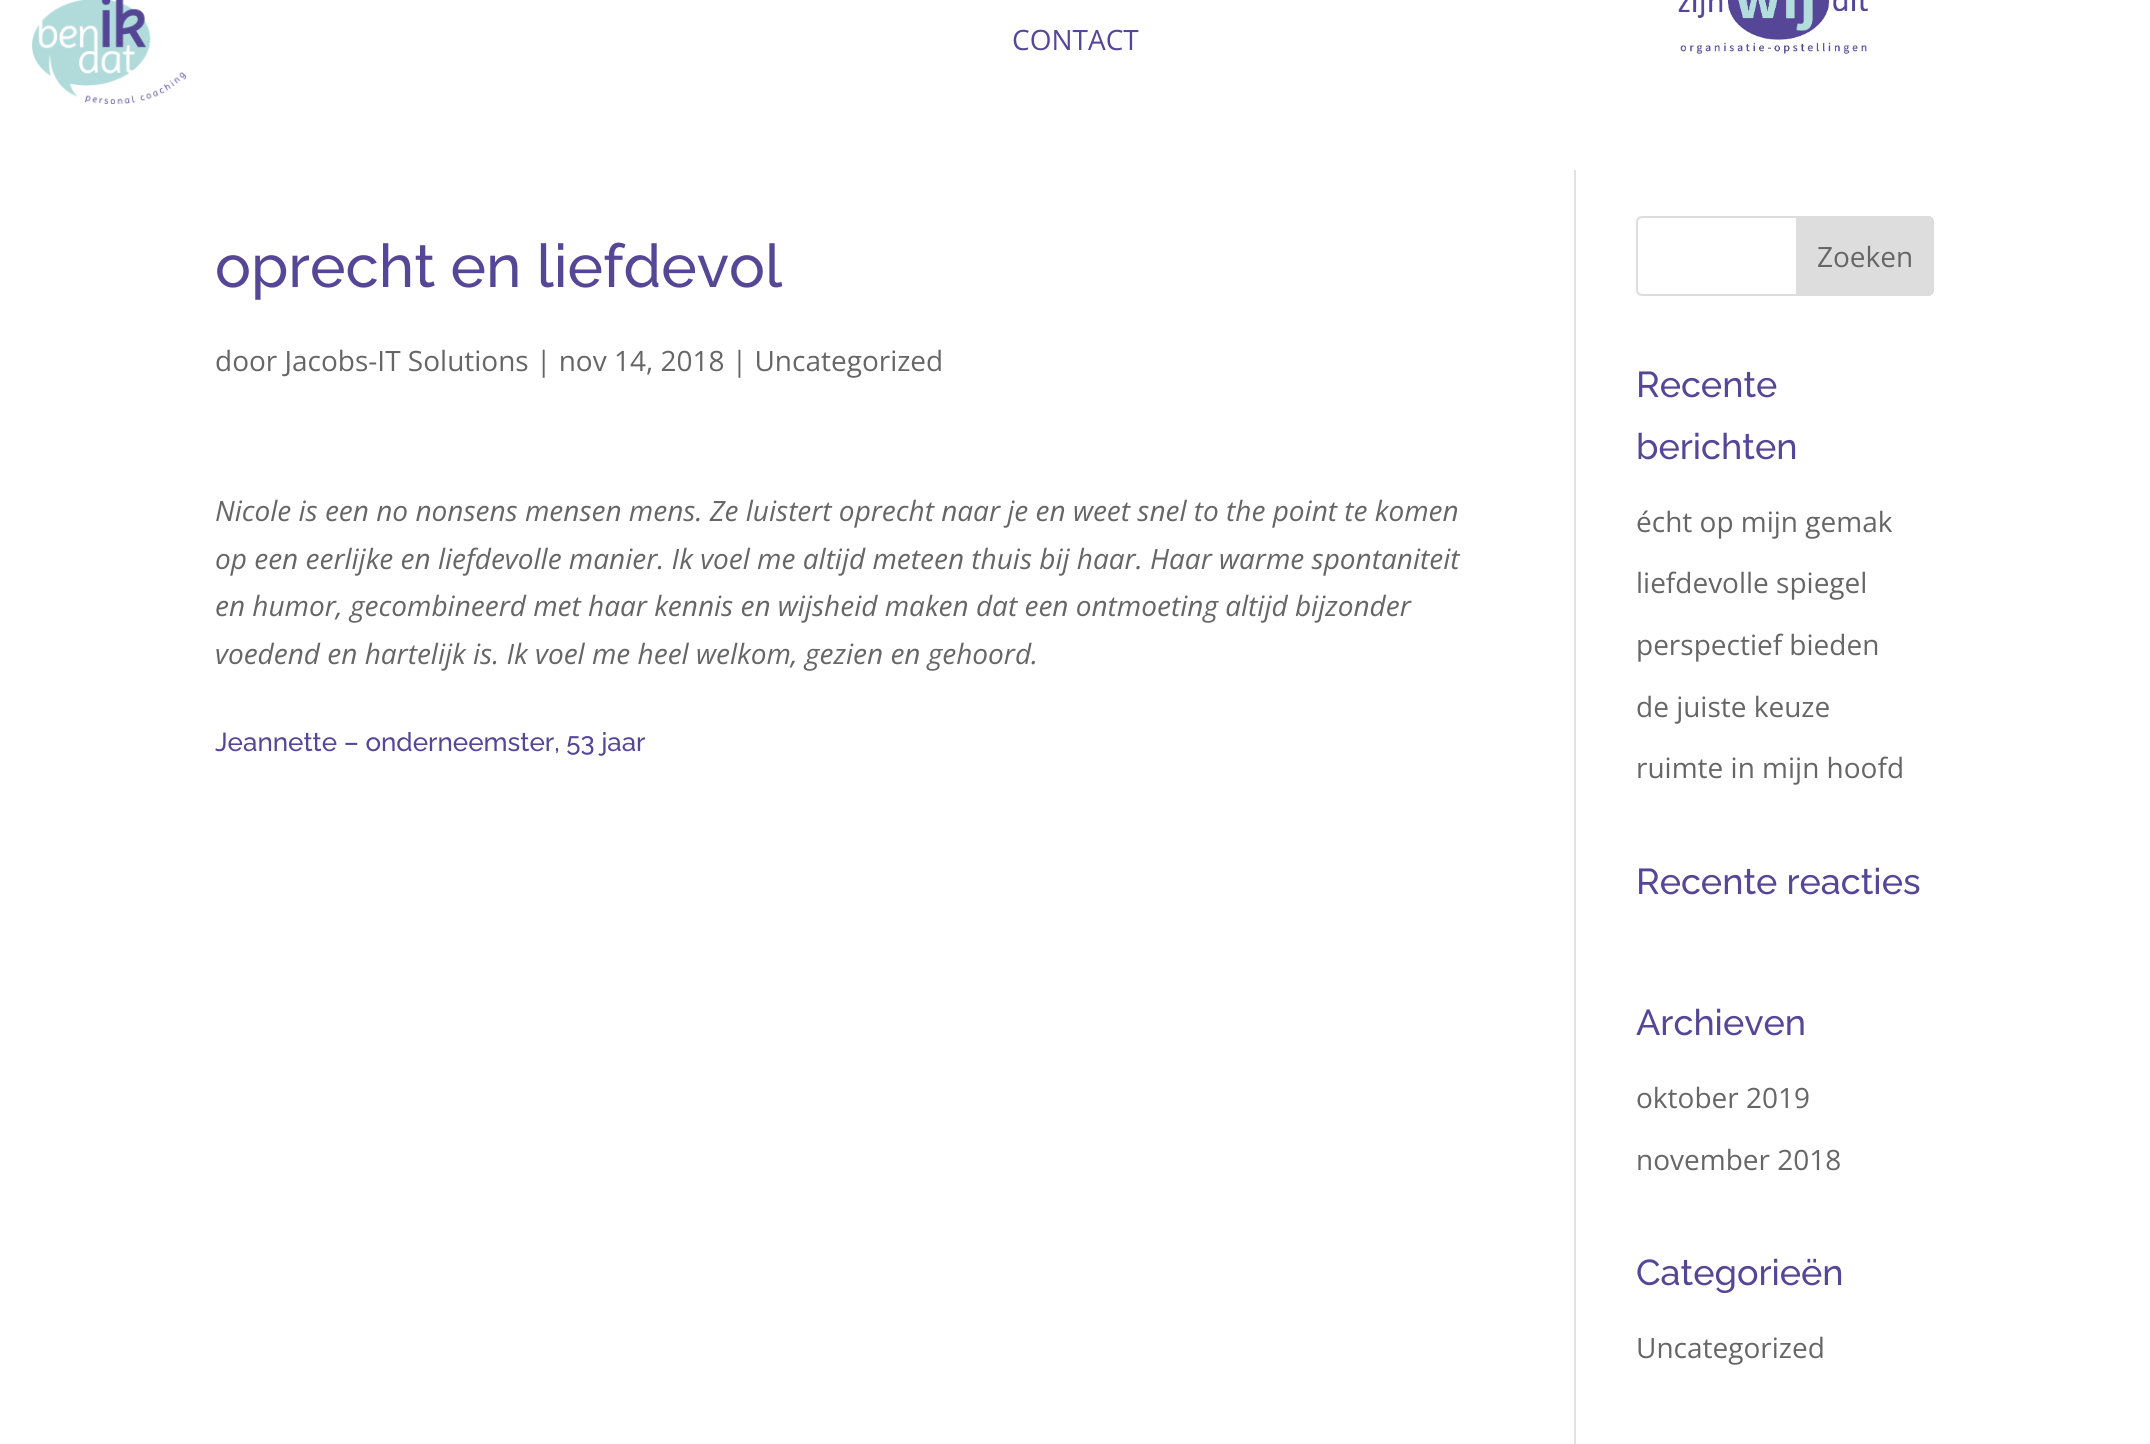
import math
import cairo


def round_path(ctx, x, y, w, h, r):
	ctx.new_sub_path()
	for i, (u, v) in enumerate([(x + w - r, y + h - r), (x + r, y + h - r), (x + r, y + r), (x + w - r, y + r)]):
		ctx.arc(u, v, r, i * math.pi / 2, (i + 1) * math.pi / 2)
	ctx.close_path()

def paste(ctx, path, x, y, w, h):
	ctx.save()
	ctx.set_source_surface(cairo.ImageSurface.create_from_png(path), x, y)
	ctx.rectangle(x, y, w, h)
	ctx.fill()
	ctx.restore()

def draw(ctx):
	ctx.set_source_rgb(1, 1, 1)
	ctx.paint()
	paste(ctx, 'media/1.png', 32, 0, 154, 104)
	ctx.select_font_face('Open Sans')
	ctx.set_font_size(28)
	ctx.set_source_rgb(0.333, 0.275, 0.588)
	ctx.move_to(1012, 50)
	ctx.show_text('CONTACT')
	paste(ctx, 'media/2.png', 1678, 0, 190, 54)
	ctx.set_source_rgb(0.886, 0.886, 0.886)
	ctx.rectangle(1574, 170, 2, 1274)
	ctx.fill()
	ctx.select_font_face('Raleway Thin')
	ctx.set_font_size(60)
	ctx.set_source_rgb(0.333, 0.275, 0.588)
	ctx.move_to(215, 287)
	ctx.show_text('oprecht en liefdevol')
	ctx.select_font_face('Open Sans')
	ctx.set_font_size(28)
	ctx.set_source_rgb(0.4, 0.4, 0.4)
	ctx.move_to(215, 371)
	ctx.show_text('door Jacobs-IT Solutions | nov 14, 2018 | Uncategorized')
	ctx.select_font_face('Open Sans', cairo.FONT_SLANT_ITALIC)
	for x, y, s in [
		(215, 521, 'Nicole is een no nonsens mensen mens. Ze luistert oprecht naar je en weet snel to the point te komen'),
		(215, 569, 'op een eerlijke en liefdevolle manier. Ik voel me altijd meteen thuis bij haar. Haar warme spontaniteit'),
		(215, 616, 'en humor, gecombineerd met haar kennis en wijsheid maken dat een ontmoeting altijd bijzonder'),
		(215, 664, 'voedend en hartelijk is. Ik voel me heel welkom, gezien en gehoord.'),
	]:
		ctx.move_to(x, y)
		ctx.show_text(s)
	ctx.select_font_face('Raleway Thin')
	ctx.set_font_size(26)
	ctx.set_source_rgb(0.333, 0.275, 0.588)
	ctx.move_to(215, 751)
	ctx.show_text('Jeannette – onderneemster, 53 jaar')
	round_path(ctx, 1637, 217, 296, 78, 5)
	ctx.set_source_rgb(0.867, 0.867, 0.867)
	ctx.stroke()
	ctx.new_path()
	ctx.move_to(1797, 217)
	ctx.line_to(1928, 217)
	ctx.curve_to(1931, 217, 1933, 219, 1933, 222)
	ctx.line_to(1933, 290)
	ctx.curve_to(1933, 293, 1931, 295, 1928, 295)
	ctx.line_to(1797, 295)
	ctx.close_path()
	ctx.fill_preserve()
	ctx.stroke()
	ctx.select_font_face('Open Sans')
	ctx.set_font_size(28)
	ctx.set_source_rgb(0.4, 0.4, 0.4)
	ctx.move_to(1817, 267)
	ctx.show_text('Zoeken')
	ctx.select_font_face('Raleway Thin')
	ctx.set_font_size(36)
	ctx.set_source_rgb(0.333, 0.275, 0.588)
	ctx.move_to(1636, 397)
	ctx.show_text('Recente')
	ctx.move_to(1636, 459)
	ctx.show_text('berichten')
	ctx.select_font_face('Open Sans')
	ctx.set_font_size(28)
	ctx.set_source_rgb(0.4, 0.4, 0.4)
	for x, y, s in [
		(1636, 532, 'écht op mijn gemak'),
		(1636, 593, 'liefdevolle spiegel'),
		(1636, 655, 'perspectief bieden'),
		(1636, 717, 'de juiste keuze'),
		(1636, 778, 'ruimte in mijn hoofd'),
	]:
		ctx.move_to(x, y)
		ctx.show_text(s)
	ctx.select_font_face('Raleway Thin')
	ctx.set_font_size(36)
	ctx.set_source_rgb(0.333, 0.275, 0.588)
	ctx.move_to(1636, 894)
	ctx.show_text('Recente reacties')
	ctx.move_to(1636, 1035)
	ctx.show_text('Archieven')
	ctx.select_font_face('Open Sans')
	ctx.set_font_size(28)
	ctx.set_source_rgb(0.4, 0.4, 0.4)
	ctx.move_to(1636, 1108)
	ctx.show_text('oktober 2019')
	ctx.move_to(1636, 1170)
	ctx.show_text('november 2018')
	ctx.select_font_face('Raleway Thin')
	ctx.set_font_size(36)
	ctx.set_source_rgb(0.333, 0.275, 0.588)
	ctx.move_to(1636, 1285)
	ctx.show_text('Categorieën')
	ctx.select_font_face('Open Sans')
	ctx.set_font_size(28)
	ctx.set_source_rgb(0.4, 0.4, 0.4)
	ctx.move_to(1636, 1358)
	ctx.show_text('Uncategorized')


surface = cairo.ImageSurface(cairo.FORMAT_RGB24, 2150, 1444)
ctx = cairo.Context(surface)
options = cairo.FontOptions()
options.set_hint_metrics(cairo.HINT_METRICS_OFF)
options.set_hint_style(cairo.HINT_STYLE_NONE)
ctx.set_font_options(options)
ctx.set_miter_limit(4)
draw(ctx)
surface.write_to_png('image.png')
